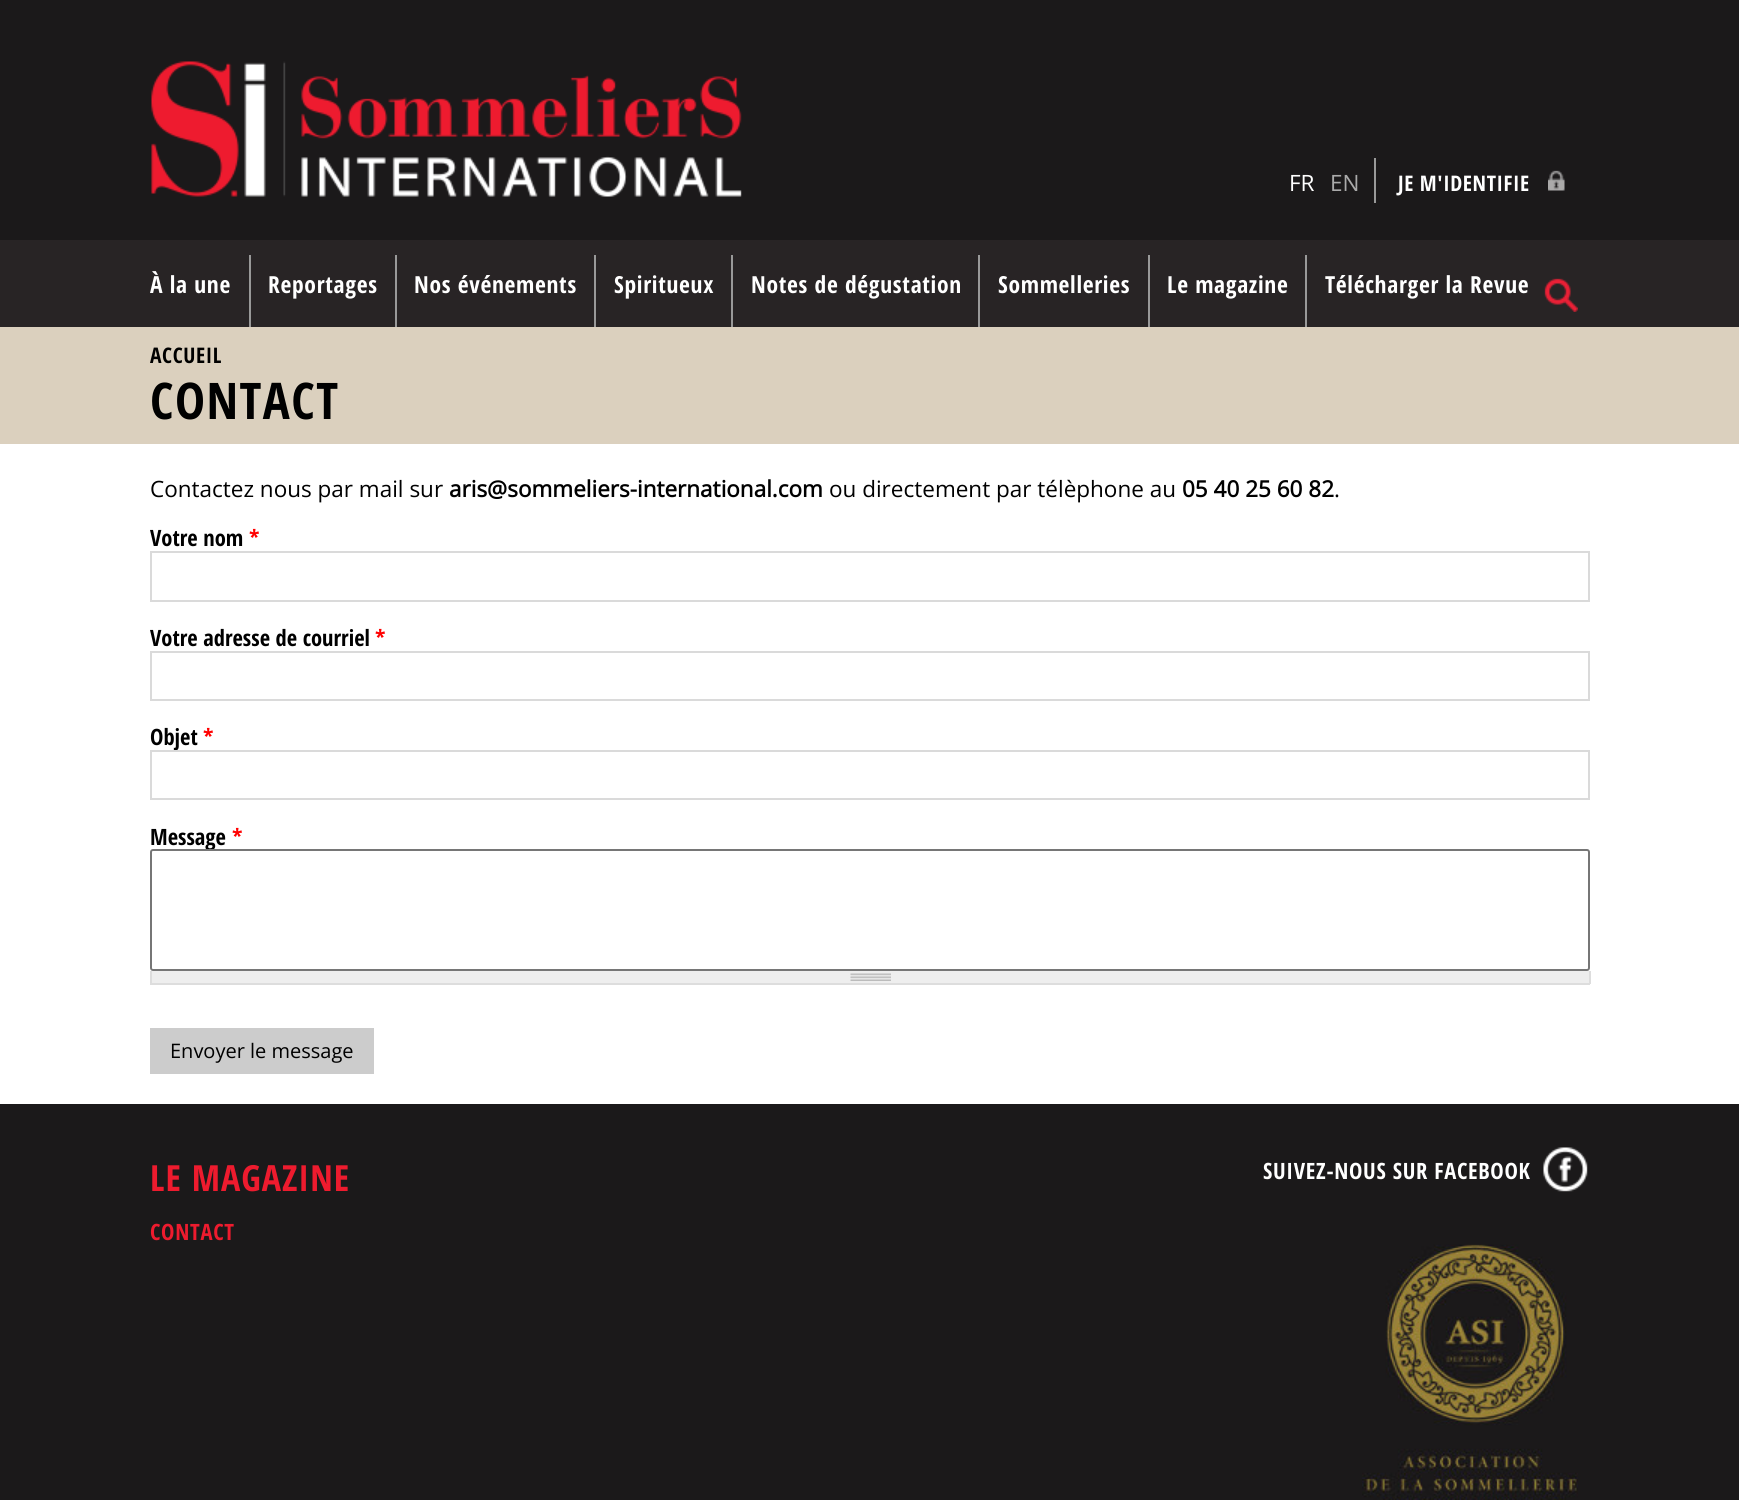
import math
import cairo


def write_spaced(ctx, x, y, s, letter, word):
	ctx.move_to(x, y)
	for ch in s:
		ctx.show_text(ch)
		ctx.rel_move_to(letter + word * (ch == ' '), 0)

def round_path(ctx, x, y, w, h, r):
	ctx.new_sub_path()
	for i, (u, v) in enumerate([(x + w - r, y + h - r), (x + r, y + h - r), (x + r, y + r), (x + w - r, y + r)]):
		ctx.arc(u, v, r, i * math.pi / 2, (i + 1) * math.pi / 2)
	ctx.close_path()

def paste(ctx, path, x, y, w, h):
	ctx.save()
	ctx.set_source_surface(cairo.ImageSurface.create_from_png(path), x, y)
	ctx.rectangle(x, y, w, h)
	ctx.fill()
	ctx.restore()

def draw(ctx):
	ctx.set_source_rgb(1, 1, 1)
	ctx.paint()
	ctx.set_source_rgb(0.106, 0.098, 0.102)
	ctx.rectangle(0, 0, 1739, 240)
	ctx.fill()
	paste(ctx, 'media/1.png', 151, 61, 591, 136)
	ctx.select_font_face('Open Sans')
	ctx.set_font_size(22.5)
	ctx.set_source_rgb(1, 1, 1)
	ctx.move_to(1289, 191)
	ctx.show_text('FR')
	ctx.set_source_rgb(0.667, 0.667, 0.667)
	ctx.move_to(1330, 191)
	ctx.show_text('EN')
	paste(ctx, 'media/2.png', 1548, 170, 17, 21)
	ctx.set_source_rgb(0.6, 0.6, 0.6)
	ctx.rectangle(1374, 158, 2, 45)
	ctx.fill()
	ctx.select_font_face('Open Sans Condensed', cairo.FONT_SLANT_NORMAL, cairo.FONT_WEIGHT_BOLD)
	ctx.set_font_size(21.5)
	ctx.set_source_rgb(1, 1, 1)
	write_spaced(ctx, 1398, 191, 'JE M\'IDENTIFIE', 0.6, 0)
	ctx.set_source_rgb(0.157, 0.141, 0.145)
	ctx.rectangle(0, 240, 1739, 87)
	ctx.fill()
	ctx.set_source_rgb(0.6, 0.6, 0.6)
	ctx.rectangle(249, 255, 2, 72)
	ctx.fill()
	ctx.set_font_size(23.5)
	ctx.set_source_rgb(1, 1, 1)
	write_spaced(ctx, 150, 293, 'À la une', 0.7, 0)
	ctx.set_source_rgb(0.6, 0.6, 0.6)
	ctx.rectangle(395, 255, 2, 72)
	ctx.fill()
	ctx.set_source_rgb(1, 1, 1)
	write_spaced(ctx, 268, 293, 'Reportages', 0.7, 0)
	ctx.set_source_rgb(0.6, 0.6, 0.6)
	ctx.rectangle(594, 255, 2, 72)
	ctx.fill()
	ctx.set_source_rgb(1, 1, 1)
	write_spaced(ctx, 414, 293, 'Nos événements', 0.7, 0)
	ctx.set_source_rgb(0.6, 0.6, 0.6)
	ctx.rectangle(731, 255, 2, 72)
	ctx.fill()
	ctx.set_source_rgb(1, 1, 1)
	write_spaced(ctx, 614, 293, 'Spiritueux', 0.7, 0)
	ctx.set_source_rgb(0.6, 0.6, 0.6)
	ctx.rectangle(978, 255, 2, 72)
	ctx.fill()
	ctx.set_source_rgb(1, 1, 1)
	write_spaced(ctx, 751, 293, 'Notes de dégustation', 0.7, 0)
	ctx.set_source_rgb(0.6, 0.6, 0.6)
	ctx.rectangle(1148, 255, 2, 72)
	ctx.fill()
	ctx.set_source_rgb(1, 1, 1)
	write_spaced(ctx, 998, 293, 'Sommelleries', 0.7, 0)
	ctx.set_source_rgb(0.6, 0.6, 0.6)
	ctx.rectangle(1305, 255, 2, 72)
	ctx.fill()
	ctx.set_source_rgb(1, 1, 1)
	write_spaced(ctx, 1167, 293, 'Le magazine', 0.7, 0)
	write_spaced(ctx, 1325, 293, 'Télécharger la Revue', 0.7, 0)
	paste(ctx, 'media/3.png', 1544, 278, 34, 34)
	ctx.set_source_rgb(0.859, 0.816, 0.745)
	ctx.rectangle(0, 327, 1739, 117)
	ctx.fill()
	ctx.set_font_size(21.5)
	ctx.set_source_rgb(0, 0, 0)
	write_spaced(ctx, 150, 363, 'ACCUEIL', 0.6, 0)
	ctx.set_font_size(50.5)
	write_spaced(ctx, 150, 419, 'CONTACT', 1.5, 0)
	ctx.select_font_face('Open Sans')
	ctx.set_font_size(22.5)
	ctx.move_to(150, 497)
	ctx.show_text('Contactez nous par mail sur')
	ctx.select_font_face('Open Sans', cairo.FONT_SLANT_NORMAL, cairo.FONT_WEIGHT_BOLD)
	ctx.move_to(449, 497)
	ctx.show_text('aris@sommeliers-international.com')
	ctx.select_font_face('Open Sans')
	ctx.move_to(829, 497)
	ctx.show_text('ou directement par télèphone au')
	ctx.select_font_face('Open Sans', cairo.FONT_SLANT_NORMAL, cairo.FONT_WEIGHT_BOLD)
	ctx.move_to(1182, 497)
	ctx.show_text('05 40 25 60 82')
	ctx.select_font_face('Open Sans')
	ctx.move_to(1334, 497)
	ctx.show_text('.')
	ctx.select_font_face('Open Sans Condensed', cairo.FONT_SLANT_NORMAL, cairo.FONT_WEIGHT_BOLD)
	ctx.move_to(150, 546)
	ctx.show_text('Votre nom')
	ctx.set_source_rgb(1, 0, 0)
	ctx.move_to(249, 546)
	ctx.show_text('*')
	ctx.rectangle(151, 552, 1438, 49)
	ctx.set_source_rgb(0.855, 0.855, 0.855)
	ctx.stroke()
	ctx.set_source_rgb(0, 0, 0)
	ctx.move_to(150, 646)
	ctx.show_text('Votre adresse de courriel')
	ctx.set_source_rgb(1, 0, 0)
	ctx.move_to(375, 646)
	ctx.show_text('*')
	ctx.rectangle(151, 652, 1438, 48)
	ctx.set_source_rgb(0.855, 0.855, 0.855)
	ctx.stroke()
	ctx.set_source_rgb(0, 0, 0)
	ctx.move_to(150, 745)
	ctx.show_text('Objet')
	ctx.set_source_rgb(1, 0, 0)
	ctx.move_to(203, 745)
	ctx.show_text('*')
	ctx.rectangle(151, 751, 1438, 48)
	ctx.set_source_rgb(0.855, 0.855, 0.855)
	ctx.stroke()
	ctx.set_source_rgb(0, 0, 0)
	ctx.move_to(150, 845)
	ctx.show_text('Message')
	ctx.set_source_rgb(1, 0, 0)
	ctx.move_to(232, 845)
	ctx.show_text('*')
	ctx.set_source_rgb(1, 1, 1)
	round_path(ctx, 151, 850, 1438, 120, 2)
	ctx.fill_preserve()
	ctx.set_source_rgb(0.463, 0.463, 0.463)
	ctx.stroke()
	ctx.set_source_rgb(0.933, 0.933, 0.933)
	ctx.rectangle(152, 971, 1437, 12)
	ctx.fill()
	paste(ctx, 'media/4.png', 850, 973, 41, 8)
	ctx.set_source_rgb(0.867, 0.867, 0.867)
	ctx.rectangle(1589, 971, 2, 13)
	ctx.rectangle(150, 983, 1440, 2)
	ctx.rectangle(150, 971, 2, 13)
	ctx.fill()
	ctx.set_source_rgb(0.8, 0.8, 0.8)
	ctx.rectangle(150, 1028, 224, 46)
	ctx.fill()
	ctx.select_font_face('Open Sans')
	ctx.set_font_size(20)
	ctx.set_source_rgb(0, 0, 0)
	ctx.move_to(170, 1058)
	ctx.show_text('Envoyer le message')
	ctx.set_source_rgb(0.106, 0.098, 0.102)
	ctx.rectangle(0, 1104, 1739, 396)
	ctx.fill()
	ctx.select_font_face('Open Sans Condensed', cairo.FONT_SLANT_NORMAL, cairo.FONT_WEIGHT_BOLD)
	ctx.set_font_size(36)
	ctx.set_source_rgb(0.933, 0.106, 0.18)
	write_spaced(ctx, 150, 1191, 'LE MAGAZINE', 1, 0)
	ctx.set_font_size(22.5)
	write_spaced(ctx, 150, 1240, 'CONTACT', 0.7, 0)
	ctx.set_source_rgb(1, 1, 1)
	write_spaced(ctx, 1263, 1179, 'SUIVEZ-NOUS SUR FACEBOOK', 0.7, 0)
	paste(ctx, 'media/5.png', 1543, 1147, 45, 45)
	paste(ctx, 'media/6.png', 1362, 1244, 216, 256)


surface = cairo.ImageSurface(cairo.FORMAT_RGB24, 1739, 1500)
ctx = cairo.Context(surface)
options = cairo.FontOptions()
options.set_hint_metrics(cairo.HINT_METRICS_OFF)
options.set_hint_style(cairo.HINT_STYLE_NONE)
ctx.set_font_options(options)
ctx.set_miter_limit(4)
draw(ctx)
surface.write_to_png('image.png')
